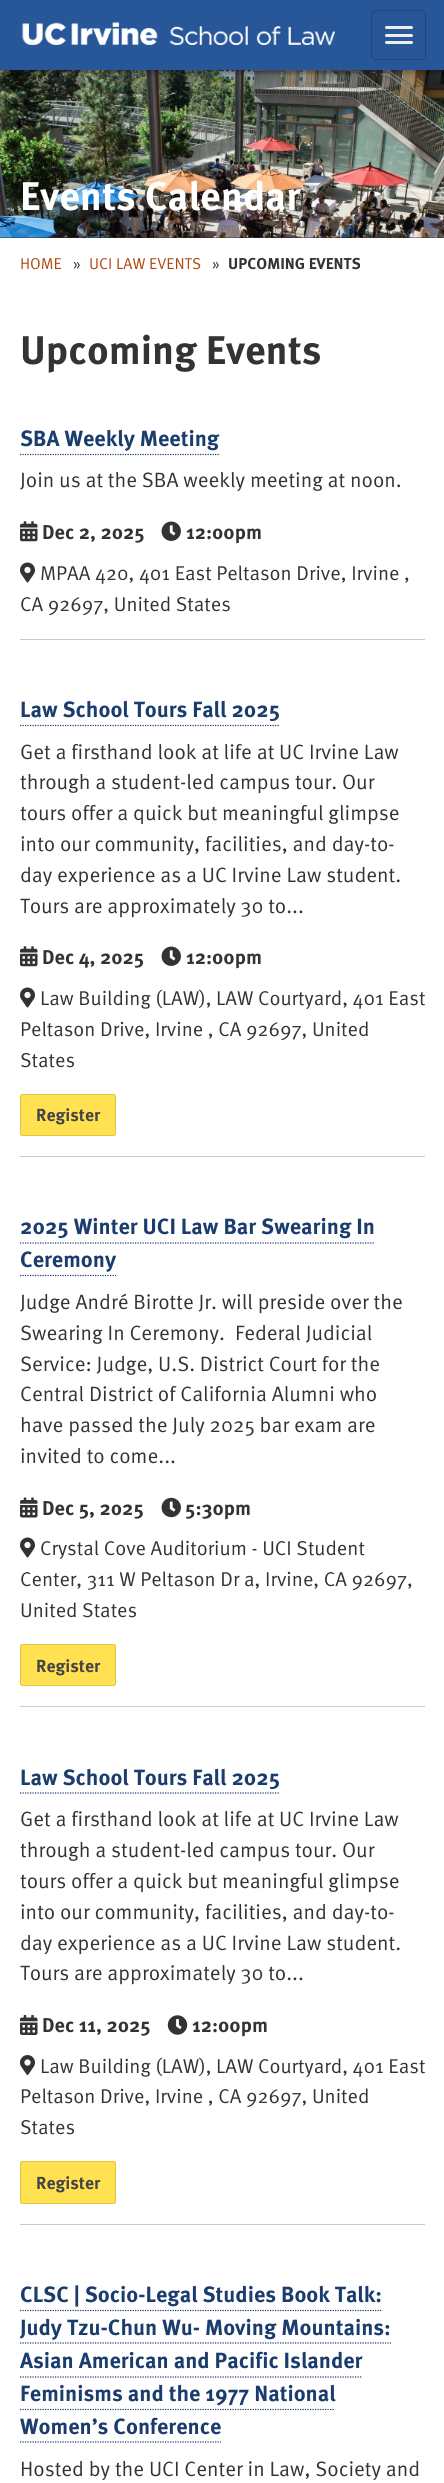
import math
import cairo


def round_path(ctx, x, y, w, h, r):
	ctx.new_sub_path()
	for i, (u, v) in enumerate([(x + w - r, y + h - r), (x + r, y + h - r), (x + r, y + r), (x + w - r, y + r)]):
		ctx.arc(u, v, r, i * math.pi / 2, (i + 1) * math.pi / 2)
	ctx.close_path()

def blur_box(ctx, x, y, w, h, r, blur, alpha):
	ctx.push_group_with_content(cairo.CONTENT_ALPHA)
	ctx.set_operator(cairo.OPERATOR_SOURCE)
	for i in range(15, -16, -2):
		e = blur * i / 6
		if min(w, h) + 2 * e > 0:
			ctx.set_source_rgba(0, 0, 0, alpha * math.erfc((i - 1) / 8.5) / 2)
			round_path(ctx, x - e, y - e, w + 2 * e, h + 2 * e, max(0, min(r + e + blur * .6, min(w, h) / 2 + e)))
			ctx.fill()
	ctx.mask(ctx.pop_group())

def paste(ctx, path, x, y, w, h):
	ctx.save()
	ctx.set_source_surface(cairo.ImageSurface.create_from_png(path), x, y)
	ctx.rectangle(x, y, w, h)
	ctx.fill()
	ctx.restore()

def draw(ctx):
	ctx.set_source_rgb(1, 1, 1)
	ctx.paint()
	ctx.set_source_rgb(0.2, 0.2, 0.2)
	ctx.rectangle(0, 237, 444, 1)
	ctx.fill()
	paste(ctx, 'media/2.png', 0, 70, 444, 168)
	ctx.set_source_rgb(0, 0, 0)
	blur_box(ctx, 0, 4, 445, 70, 0, 2, 0.23)
	blur_box(ctx, 4, 0, 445, 70, 0, 2, 0.19)
	ctx.set_source_rgb(0.153, 0.341, 0.6)
	ctx.rectangle(0, 0, 444, 70)
	ctx.fill()
	paste(ctx, 'media/1.png', 22, 22, 313, 23)
	round_path(ctx, 371.5, 10.5, 54, 49, 4.5)
	ctx.set_source_rgb(0.141, 0.275, 0.478)
	ctx.set_line_width(1)
	ctx.stroke()
	ctx.set_source_rgb(0.933, 0.933, 0.933)
	round_path(ctx, 385, 26, 28, 3, 1.5)
	ctx.fill()
	round_path(ctx, 385, 34, 28, 3, 1.5)
	ctx.fill()
	round_path(ctx, 385, 41, 28, 3, 1.5)
	ctx.fill()
	ctx.select_font_face('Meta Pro', cairo.FONT_SLANT_NORMAL, cairo.FONT_WEIGHT_BOLD)
	ctx.set_font_size(40)
	ctx.set_source_rgb(1, 1, 1)
	ctx.move_to(20, 210)
	ctx.show_text('Events Calendar')
	ctx.select_font_face('Meta Pro')
	ctx.set_font_size(15.75)
	ctx.set_source_rgb(0.694, 0.275, 0.055)
	ctx.move_to(20, 269)
	ctx.show_text('HOME')
	ctx.set_source_rgb(0.2, 0.2, 0.2)
	ctx.move_to(73, 269)
	ctx.show_text('»')
	ctx.set_source_rgb(0.694, 0.275, 0.055)
	ctx.move_to(89, 269)
	ctx.show_text('UCI LAW EVENTS')
	ctx.set_source_rgb(0.2, 0.2, 0.2)
	ctx.move_to(212, 269)
	ctx.show_text('»')
	ctx.select_font_face('Meta Pro', cairo.FONT_SLANT_NORMAL, cairo.FONT_WEIGHT_BOLD)
	ctx.move_to(228, 269)
	ctx.show_text('UPCOMING EVENTS')
	ctx.set_font_size(40)
	ctx.move_to(20, 364)
	ctx.show_text('Upcoming Events')
	ctx.set_font_size(22)
	ctx.set_source_rgb(0.106, 0.239, 0.427)
	ctx.move_to(20, 446)
	ctx.show_text('SBA Weekly Meeting')
	ctx.new_path()
	ctx.move_to(20, 454.5)
	ctx.line_to(219, 454.5)
	ctx.set_line_width(1.2)
	ctx.set_dash([1.25, 1.25])
	ctx.stroke()
	ctx.select_font_face('Meta Pro')
	ctx.set_font_size(20.75)
	ctx.set_source_rgb(0.2, 0.2, 0.2)
	ctx.move_to(20, 487)
	ctx.show_text('Join us at the SBA weekly meeting at noon.')
	paste(ctx, 'media/3.png', 20, 521, 18, 21)
	ctx.select_font_face('Meta Pro', cairo.FONT_SLANT_NORMAL, cairo.FONT_WEIGHT_BOLD)
	ctx.set_font_size(20)
	ctx.move_to(42, 539)
	ctx.show_text('Dec 2, 2025')
	paste(ctx, 'media/4.png', 161, 521, 20, 20)
	ctx.move_to(186, 539)
	ctx.show_text('12:00pm')
	paste(ctx, 'media/5.png', 20, 562, 15, 21)
	ctx.select_font_face('Meta Pro')
	ctx.move_to(40, 580)
	ctx.show_text('MPAA 420, 401 East Peltason Drive, Irvine ,')
	ctx.move_to(20, 611)
	ctx.show_text('CA 92697, United States')
	ctx.set_source_rgb(0.8, 0.8, 0.8)
	ctx.rectangle(20, 639, 405, 1)
	ctx.fill()
	ctx.select_font_face('Meta Pro', cairo.FONT_SLANT_NORMAL, cairo.FONT_WEIGHT_BOLD)
	ctx.set_font_size(22)
	ctx.set_source_rgb(0.106, 0.239, 0.427)
	ctx.move_to(20, 717)
	ctx.show_text('Law School Tours Fall 2025')
	ctx.new_path()
	ctx.move_to(20, 725.5)
	ctx.line_to(280, 725.5)
	ctx.stroke()
	ctx.select_font_face('Meta Pro')
	ctx.set_font_size(20.75)
	ctx.set_source_rgb(0.2, 0.2, 0.2)
	for x, y, s in [
		(20, 759, 'Get a firsthand look at life at UC Irvine Law'),
		(20, 789, 'through a student-led campus tour. Our'),
		(20, 820, 'tours offer a quick but meaningful glimpse'),
		(20, 851, 'into our community, facilities, and day-to-'),
		(20, 882, 'day experience as a UC Irvine Law student.'),
		(20, 913, 'Tours are approximately 30 to...'),
	]:
		ctx.move_to(x, y)
		ctx.show_text(s)
	paste(ctx, 'media/3.png', 20, 946, 18, 21)
	ctx.select_font_face('Meta Pro', cairo.FONT_SLANT_NORMAL, cairo.FONT_WEIGHT_BOLD)
	ctx.set_font_size(20)
	ctx.move_to(42, 964)
	ctx.show_text('Dec 4, 2025')
	paste(ctx, 'media/4.png', 161, 946, 20, 20)
	ctx.move_to(186, 964)
	ctx.show_text('12:00pm')
	paste(ctx, 'media/5.png', 20, 987, 15, 21)
	ctx.select_font_face('Meta Pro')
	for x, y, s in [
		(40, 1005, 'Law Building (LAW), LAW Courtyard, 401 East'),
		(20, 1036, 'Peltason Drive, Irvine , CA 92697, United'),
		(20, 1067, 'States'),
	]:
		ctx.move_to(x, y)
		ctx.show_text(s)
	ctx.set_source_rgb(1, 0.882, 0.322)
	round_path(ctx, 20.5, 1094.5, 95, 41, 2)
	ctx.fill_preserve()
	ctx.set_source_rgb(0.886, 0.776, 0.243)
	ctx.set_line_width(1)
	ctx.set_dash([])
	ctx.stroke()
	ctx.select_font_face('Meta Pro', cairo.FONT_SLANT_NORMAL, cairo.FONT_WEIGHT_BOLD)
	ctx.set_font_size(17.5)
	ctx.set_source_rgb(0.267, 0.267, 0.267)
	ctx.move_to(36, 1121)
	ctx.show_text('Register')
	ctx.set_source_rgb(0.8, 0.8, 0.8)
	ctx.rectangle(20, 1156, 405, 1)
	ctx.fill()
	ctx.set_font_size(22)
	ctx.set_source_rgb(0.106, 0.239, 0.427)
	ctx.move_to(20, 1234)
	ctx.show_text('2025 Winter UCI Law Bar Swearing In')
	ctx.new_path()
	ctx.move_to(20, 1243)
	ctx.line_to(375, 1243)
	ctx.set_line_width(1.2)
	ctx.set_dash([1.25, 1.25])
	ctx.stroke()
	ctx.move_to(20, 1267)
	ctx.show_text('Ceremony')
	ctx.new_path()
	ctx.move_to(20, 1275.5)
	ctx.line_to(116, 1275.5)
	ctx.stroke()
	ctx.select_font_face('Meta Pro')
	ctx.set_font_size(20.75)
	ctx.set_source_rgb(0.2, 0.2, 0.2)
	for x, y, s in [
		(20, 1309, 'Judge André Birotte Jr. will preside over the'),
		(20, 1340, 'Swearing In Ceremony.'),
		(235, 1340, 'Federal Judicial'),
		(20, 1371, 'Service: Judge, U.S. District Court for the'),
		(20, 1401, 'Central District of California Alumni who'),
		(20, 1432, 'have passed the July 2025 bar exam are'),
		(20, 1463, 'invited to come...'),
	]:
		ctx.move_to(x, y)
		ctx.show_text(s)
	paste(ctx, 'media/6.png', 20, 1497, 18, 21)
	ctx.select_font_face('Meta Pro', cairo.FONT_SLANT_NORMAL, cairo.FONT_WEIGHT_BOLD)
	ctx.set_font_size(20)
	ctx.move_to(42, 1515)
	ctx.show_text('Dec 5, 2025')
	paste(ctx, 'media/7.png', 161, 1497, 20, 21)
	ctx.move_to(185, 1515)
	ctx.show_text('5:30pm')
	paste(ctx, 'media/5.png', 20, 1537, 15, 21)
	ctx.select_font_face('Meta Pro')
	for x, y, s in [
		(40, 1555, 'Crystal Cove Auditorium - UCI Student'),
		(20, 1586, 'Center, 311 W Peltason Dr a, Irvine, CA 92697,'),
		(20, 1617, 'United States'),
	]:
		ctx.move_to(x, y)
		ctx.show_text(s)
	ctx.set_source_rgb(1, 0.882, 0.322)
	round_path(ctx, 20.5, 1644.5, 95, 41, 2)
	ctx.fill_preserve()
	ctx.set_source_rgb(0.886, 0.776, 0.243)
	ctx.set_line_width(1)
	ctx.set_dash([])
	ctx.stroke()
	ctx.select_font_face('Meta Pro', cairo.FONT_SLANT_NORMAL, cairo.FONT_WEIGHT_BOLD)
	ctx.set_font_size(17.5)
	ctx.set_source_rgb(0.267, 0.267, 0.267)
	ctx.move_to(36, 1672)
	ctx.show_text('Register')
	ctx.set_source_rgb(0.8, 0.8, 0.8)
	ctx.rectangle(20, 1706, 405, 1)
	ctx.fill()
	ctx.set_font_size(22)
	ctx.set_source_rgb(0.106, 0.239, 0.427)
	ctx.move_to(20, 1785)
	ctx.show_text('Law School Tours Fall 2025')
	ctx.new_path()
	ctx.move_to(20, 1793)
	ctx.line_to(280, 1793)
	ctx.set_line_width(1.2)
	ctx.set_dash([1.25, 1.25])
	ctx.stroke()
	ctx.select_font_face('Meta Pro')
	ctx.set_font_size(20.75)
	ctx.set_source_rgb(0.2, 0.2, 0.2)
	for x, y, s in [
		(20, 1826, 'Get a firsthand look at life at UC Irvine Law'),
		(20, 1857, 'through a student-led campus tour. Our'),
		(20, 1888, 'tours offer a quick but meaningful glimpse'),
		(20, 1919, 'into our community, facilities, and day-to-'),
		(20, 1950, 'day experience as a UC Irvine Law student.'),
		(20, 1980, 'Tours are approximately 30 to...'),
	]:
		ctx.move_to(x, y)
		ctx.show_text(s)
	paste(ctx, 'media/8.png', 20, 2015, 18, 20)
	ctx.select_font_face('Meta Pro', cairo.FONT_SLANT_NORMAL, cairo.FONT_WEIGHT_BOLD)
	ctx.set_font_size(20)
	ctx.move_to(42, 2032)
	ctx.show_text('Dec 11, 2025')
	paste(ctx, 'media/9.png', 167, 2015, 21, 20)
	ctx.move_to(192, 2032)
	ctx.show_text('12:00pm')
	paste(ctx, 'media/10.png', 20, 2055, 15, 20)
	ctx.select_font_face('Meta Pro')
	for x, y, s in [
		(40, 2073, 'Law Building (LAW), LAW Courtyard, 401 East'),
		(20, 2103, 'Peltason Drive, Irvine , CA 92697, United'),
		(20, 2134, 'States'),
	]:
		ctx.move_to(x, y)
		ctx.show_text(s)
	ctx.set_source_rgb(1, 0.882, 0.322)
	round_path(ctx, 20.5, 2161.5, 95, 42, 2)
	ctx.fill_preserve()
	ctx.set_source_rgb(0.886, 0.776, 0.243)
	ctx.set_line_width(1)
	ctx.set_dash([])
	ctx.stroke()
	ctx.select_font_face('Meta Pro', cairo.FONT_SLANT_NORMAL, cairo.FONT_WEIGHT_BOLD)
	ctx.set_font_size(17.5)
	ctx.set_source_rgb(0.267, 0.267, 0.267)
	ctx.move_to(36, 2189)
	ctx.show_text('Register')
	ctx.set_source_rgb(0.8, 0.8, 0.8)
	ctx.rectangle(20, 2224, 405, 1)
	ctx.fill()
	ctx.set_font_size(22)
	ctx.set_source_rgb(0.106, 0.239, 0.427)
	ctx.move_to(20, 2302)
	ctx.show_text('CLSC | Socio-Legal Studies Book Talk:')
	ctx.new_path()
	ctx.move_to(20, 2310.5)
	ctx.line_to(382.5, 2310.5)
	ctx.set_line_width(1.2)
	ctx.set_dash([1.25, 1.25])
	ctx.stroke()
	ctx.move_to(20, 2335)
	ctx.show_text('Judy Tzu-Chun Wu- Moving Mountains:')
	ctx.new_path()
	ctx.move_to(20, 2343)
	ctx.line_to(391, 2343)
	ctx.stroke()
	ctx.move_to(20, 2368)
	ctx.show_text('Asian American and Pacific Islander')
	ctx.new_path()
	ctx.move_to(20, 2377)
	ctx.line_to(362.5, 2377)
	ctx.stroke()
	ctx.move_to(20, 2401)
	ctx.show_text('Feminisms and the 1977 National')
	ctx.new_path()
	ctx.move_to(20, 2409.5)
	ctx.line_to(335, 2409.5)
	ctx.stroke()
	ctx.move_to(20, 2434)
	ctx.show_text('Women’s Conference')
	ctx.new_path()
	ctx.move_to(20, 2442)
	ctx.line_to(221, 2442)
	ctx.stroke()
	ctx.select_font_face('Meta Pro')
	ctx.set_font_size(20.75)
	ctx.set_source_rgb(0.2, 0.2, 0.2)
	ctx.move_to(20, 2476)
	ctx.show_text('Hosted by the UCI Center in Law, Society and')


surface = cairo.ImageSurface(cairo.FORMAT_RGB24, 444, 2483)
ctx = cairo.Context(surface)
options = cairo.FontOptions()
options.set_hint_metrics(cairo.HINT_METRICS_OFF)
options.set_hint_style(cairo.HINT_STYLE_NONE)
ctx.set_font_options(options)
ctx.set_miter_limit(4)
draw(ctx)
surface.write_to_png('image.png')
